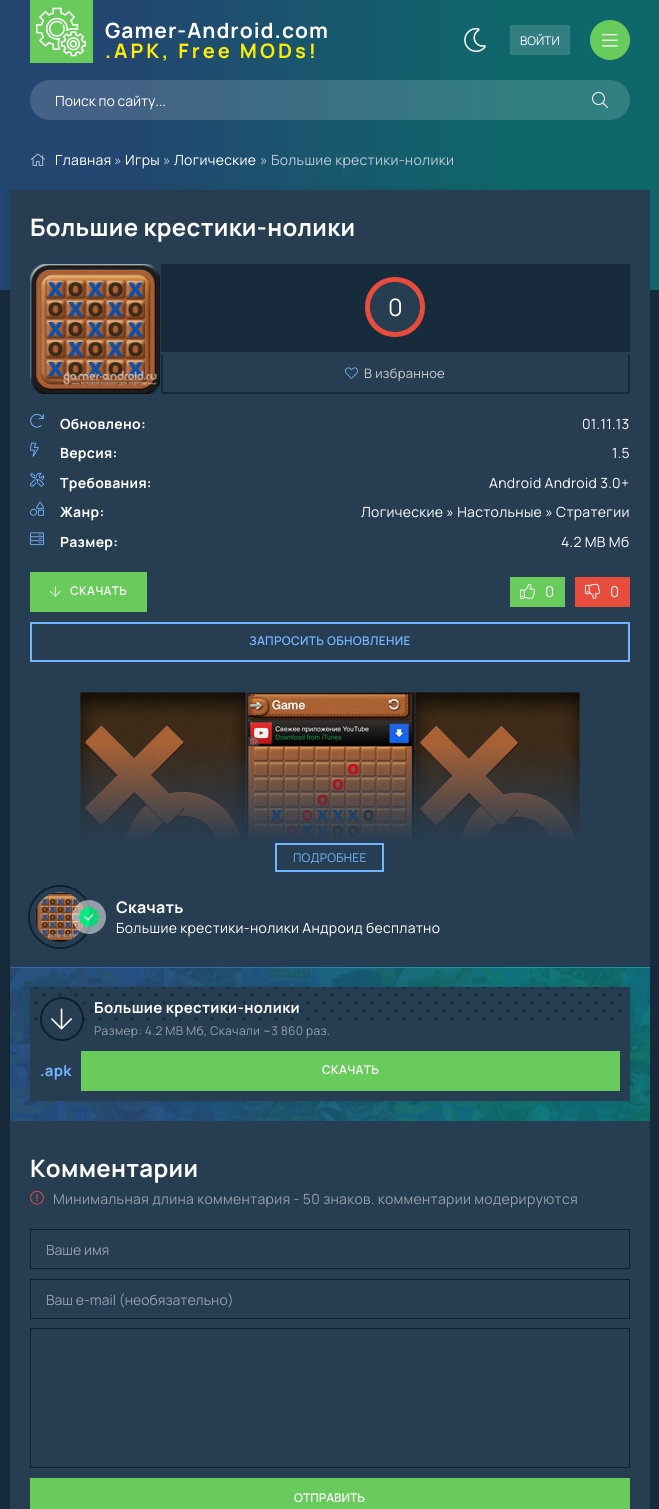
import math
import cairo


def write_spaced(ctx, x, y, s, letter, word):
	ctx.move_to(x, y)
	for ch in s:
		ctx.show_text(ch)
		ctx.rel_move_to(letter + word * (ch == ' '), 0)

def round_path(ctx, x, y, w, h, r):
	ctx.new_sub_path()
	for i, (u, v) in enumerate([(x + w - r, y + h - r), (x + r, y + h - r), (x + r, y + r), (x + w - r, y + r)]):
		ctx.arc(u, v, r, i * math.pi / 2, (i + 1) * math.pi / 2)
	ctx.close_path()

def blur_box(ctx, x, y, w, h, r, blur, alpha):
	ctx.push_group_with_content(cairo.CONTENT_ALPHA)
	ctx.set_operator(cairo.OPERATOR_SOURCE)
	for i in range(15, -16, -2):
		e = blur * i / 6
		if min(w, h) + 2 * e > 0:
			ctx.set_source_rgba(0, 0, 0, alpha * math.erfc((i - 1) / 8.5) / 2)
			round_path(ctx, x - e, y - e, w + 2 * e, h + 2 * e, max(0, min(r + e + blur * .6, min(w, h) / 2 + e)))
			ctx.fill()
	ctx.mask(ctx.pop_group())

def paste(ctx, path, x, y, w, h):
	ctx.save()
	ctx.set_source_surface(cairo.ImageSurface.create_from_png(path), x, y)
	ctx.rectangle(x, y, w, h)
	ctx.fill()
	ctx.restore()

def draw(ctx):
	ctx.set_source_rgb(0.09, 0.169, 0.239)
	ctx.paint()
	gradient = cairo.LinearGradient(0, 140, 659, 140)
	gradient.add_color_stop_rgba(0.2, 0.137, 0.278, 0.439, 1)
	gradient.add_color_stop_rgba(0.8, 0.055, 0.408, 0.42, 1)
	ctx.set_source(gradient)
	ctx.rectangle(0, 0, 659, 150)
	ctx.fill()
	ctx.set_source_rgb(0.408, 0.796, 0.357)
	ctx.rectangle(30, 0, 63, 63)
	ctx.fill()
	paste(ctx, 'media/1.png', 36, 7, 50, 50)
	ctx.select_font_face('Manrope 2 ExtraLight')
	ctx.set_font_size(21)
	ctx.set_source_rgb(1, 1, 1)
	write_spaced(ctx, 105, 38, 'Gamer-Android.com', 1, 0)
	ctx.set_font_size(20)
	ctx.set_source_rgb(0.992, 0.929, 0.02)
	write_spaced(ctx, 105, 58, '.APK, Free MODs!', 3, 0)
	paste(ctx, 'media/2.png', 464, 28, 22, 24)
	ctx.set_source_rgb(0.196, 0.494, 0.506)
	ctx.rectangle(510, 25, 60, 30)
	ctx.fill()
	ctx.select_font_face('Manrope ExtraLight')
	ctx.set_font_size(12)
	ctx.set_source_rgb(1, 1, 1)
	ctx.move_to(520, 45)
	ctx.show_text('ВОЙТИ')
	ctx.set_source_rgb(0.408, 0.796, 0.357)
	ctx.new_path()
	ctx.arc(610, 40, 20, 0, 2 * math.pi)
	ctx.fill()
	paste(ctx, 'media/3.png', 602, 34, 16, 13)
	ctx.set_source_rgba(1, 1, 1, 0.15)
	round_path(ctx, 30, 80, 600, 40, 20)
	ctx.fill()
	ctx.set_font_size(14)
	ctx.set_source_rgb(1, 1, 1)
	ctx.move_to(55, 106)
	ctx.show_text('Поиск по сайту...')
	paste(ctx, 'media/4.png', 592, 92, 16, 16)
	gradient = cairo.LinearGradient(0, 220, 659, 220)
	gradient.add_color_stop_rgba(0.2, 0.137, 0.278, 0.439, 1)
	gradient.add_color_stop_rgba(0.8, 0.055, 0.408, 0.42, 1)
	ctx.set_source(gradient)
	ctx.rectangle(0, 150, 659, 140)
	ctx.fill()
	paste(ctx, 'media/5.png', 30, 153, 15, 13)
	ctx.set_source_rgb(1, 1, 1)
	write_spaced(ctx, 55, 165, 'Главная', 0.3, 0)
	ctx.set_source_rgb(0.741, 0.784, 0.831)
	write_spaced(ctx, 114, 165, '»', 0.3, 0)
	ctx.set_source_rgb(1, 1, 1)
	write_spaced(ctx, 125, 165, 'Игры', 0.3, 0)
	ctx.set_source_rgb(0.741, 0.784, 0.831)
	write_spaced(ctx, 163, 165, '»', 0.3, 0)
	ctx.set_source_rgb(1, 1, 1)
	write_spaced(ctx, 174, 165, 'Логические', 0.3, 0)
	ctx.set_source_rgb(0.741, 0.784, 0.831)
	write_spaced(ctx, 260, 165, '» Большие крестики-нолики', 0.3, 0)
	ctx.set_source_rgb(0, 0, 0)
	blur_box(ctx, 10, 190, 640, 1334, 0, 5, 0.1)
	ctx.set_source_rgb(0.153, 0.239, 0.322)
	ctx.rectangle(10, 190, 640, 1319)
	ctx.fill()
	ctx.select_font_face('Manrope 2 ExtraLight')
	ctx.set_font_size(24)
	ctx.set_source_rgb(1, 1, 1)
	write_spaced(ctx, 30, 236, 'Большие крестики-нолики', 0.3, 0)
	paste(ctx, 'media/6.png', 30, 264, 130, 130)
	ctx.set_source_rgb(0.09, 0.169, 0.239)
	ctx.rectangle(161, 264, 469, 88)
	ctx.fill()
	ctx.set_source_rgb(0.906, 0.298, 0.235)
	ctx.new_path()
	ctx.move_to(395, 307)
	ctx.line_to(395, 277)
	ctx.curve_to(412, 277, 425, 290, 425, 307)
	ctx.curve_to(425, 324, 412, 337, 395, 337)
	ctx.curve_to(378, 337, 365, 324, 365, 307)
	ctx.curve_to(365, 290, 378, 277, 395, 277)
	ctx.close_path()
	ctx.fill()
	ctx.set_source_rgb(0.153, 0.239, 0.322)
	ctx.arc(395, 307, 25, 0, 2 * math.pi)
	ctx.fill()
	ctx.select_font_face('Manrope ExtraLight')
	ctx.set_source_rgb(1, 1, 1)
	write_spaced(ctx, 388, 316, '0', 0.3, 0)
	ctx.set_source_rgb(0.09, 0.169, 0.239)
	ctx.rectangle(628, 354, 2, 40)
	ctx.rectangle(161, 392, 469, 2)
	ctx.rectangle(161, 354, 2, 40)
	ctx.fill()
	paste(ctx, 'media/7.png', 345, 367, 13, 12)
	ctx.set_font_size(13)
	ctx.set_source_rgb(0.8, 0.8, 0.8)
	write_spaced(ctx, 364, 378, 'В избранное', 0.3, 0)
	paste(ctx, 'media/8.png', 30, 414, 14, 14)
	ctx.select_font_face('Manrope 2 ExtraLight')
	ctx.set_font_size(14)
	ctx.set_source_rgb(1, 1, 1)
	write_spaced(ctx, 60, 429, 'Обновлено:', 0.3, 0)
	ctx.select_font_face('Manrope ExtraLight')
	write_spaced(ctx, 582, 429, '01.11.13', 0.3, 0)
	paste(ctx, 'media/9.png', 30, 442, 9, 15)
	ctx.select_font_face('Manrope 2 ExtraLight')
	write_spaced(ctx, 60, 458, 'Версия:', 0.3, 0)
	ctx.select_font_face('Manrope ExtraLight')
	write_spaced(ctx, 612, 458, '1.5', 0.3, 0)
	paste(ctx, 'media/10.png', 30, 472, 14, 15)
	ctx.select_font_face('Manrope 2 ExtraLight')
	write_spaced(ctx, 60, 488, 'Требования:', 0.3, 0)
	ctx.select_font_face('Manrope ExtraLight')
	write_spaced(ctx, 489, 488, 'Android Android 3.0+', 0.3, 0)
	paste(ctx, 'media/11.png', 30, 501, 14, 15)
	ctx.select_font_face('Manrope 2 ExtraLight')
	write_spaced(ctx, 60, 517, 'Жанр:', 0.3, 0)
	ctx.select_font_face('Manrope ExtraLight')
	write_spaced(ctx, 361, 517, 'Логические » Настольные » Стратегии', 0.3, 0)
	paste(ctx, 'media/12.png', 30, 532, 14, 14)
	ctx.select_font_face('Manrope 2 ExtraLight')
	write_spaced(ctx, 60, 547, 'Размер:', 0.3, 0)
	ctx.select_font_face('Manrope ExtraLight')
	write_spaced(ctx, 561, 547, '4.2 MB Мб', 0.3, 0)
	ctx.set_source_rgb(0.408, 0.796, 0.357)
	ctx.rectangle(30, 572, 117, 40)
	ctx.fill()
	paste(ctx, 'media/13.png', 50, 586, 11, 11)
	ctx.select_font_face('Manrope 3 ExtraLight')
	ctx.set_font_size(12)
	ctx.set_source_rgb(1, 1, 1)
	write_spaced(ctx, 70, 595, 'СКАЧАТЬ', 0.3, 0)
	ctx.set_source_rgb(0.408, 0.796, 0.357)
	ctx.rectangle(510, 577, 55, 30)
	ctx.fill()
	paste(ctx, 'media/14.png', 520, 583, 15, 16)
	ctx.select_font_face('Manrope ExtraLight')
	ctx.set_font_size(15)
	ctx.set_source_rgb(1, 1, 1)
	write_spaced(ctx, 545, 597, '0', 0.3, 0)
	ctx.set_source_rgb(0.906, 0.298, 0.235)
	ctx.rectangle(575, 577, 55, 30)
	ctx.fill()
	paste(ctx, 'media/15.png', 585, 583, 15, 16)
	ctx.set_source_rgb(1, 1, 1)
	write_spaced(ctx, 610, 597, '0', 0.3, 0)
	ctx.rectangle(31, 623, 598, 38)
	ctx.set_source_rgb(0.455, 0.71, 1)
	ctx.stroke()
	ctx.select_font_face('Manrope 3 ExtraLight')
	ctx.set_font_size(12)
	write_spaced(ctx, 249, 645, 'ЗАПРОСИТЬ ОБНОВЛЕНИЕ', 0.3, 0)
	paste(ctx, 'media/16.png', 80, 692, 500, 149)
	gradient = cairo.LinearGradient(330, 742, 330, 842)
	gradient.add_color_stop_rgba(0, 0.153, 0.239, 0.322, 0)
	gradient.add_color_stop_rgba(1, 0.153, 0.239, 0.322, 1)
	ctx.set_source(gradient)
	ctx.rectangle(80, 744, 500, 97)
	ctx.fill()
	ctx.rectangle(276, 844, 107, 27)
	ctx.set_source_rgb(0.455, 0.71, 1)
	ctx.stroke()
	ctx.select_font_face('Manrope ExtraLight')
	write_spaced(ctx, 293, 862, 'ПОДРОБНЕЕ', 0.3, 0)
	ctx.new_path()
	ctx.arc(60, 917, 31, 0, 2 * math.pi)
	ctx.set_source_rgb(0.059, 0.122, 0.18)
	ctx.stroke()
	ctx.arc(60, 917, 27.5, 0, 2 * math.pi)
	ctx.set_source_rgb(0.153, 0.239, 0.322)
	ctx.set_line_width(5)
	ctx.stroke()
	paste(ctx, 'media/17.png', 35, 892, 49, 50)
	ctx.set_source_rgba(1, 1, 1, 0.5)
	ctx.arc(89, 917, 17, 0, 2 * math.pi)
	ctx.fill()
	paste(ctx, 'media/18.png', 78, 906, 22, 22)
	ctx.select_font_face('Manrope 2 ExtraLight')
	ctx.set_font_size(16)
	ctx.set_source_rgb(1, 1, 1)
	write_spaced(ctx, 116, 913, 'Скачать', 0.3, 0)
	ctx.select_font_face('Manrope ExtraLight')
	ctx.set_font_size(14)
	write_spaced(ctx, 116, 933, 'Большие крестики-нолики Андроид бесплатно', 0.3, 0)
	paste(ctx, 'media/19.png', 10, 967, 640, 154)
	ctx.set_source_rgb(0, 0, 0)
	blur_box(ctx, 30, 987, 600, 114, 0, 5, 0.1)
	ctx.set_source_rgb(0.153, 0.239, 0.322)
	ctx.rectangle(30, 987, 600, 114)
	ctx.fill()
	paste(ctx, 'media/20.png', 34, 987, 588, 34)
	ctx.arc(62, 1019, 21, 0, 2 * math.pi)
	ctx.fill_preserve()
	ctx.set_source_rgb(0.059, 0.122, 0.18)
	ctx.set_line_width(2)
	ctx.stroke()
	paste(ctx, 'media/21.png', 51, 1008, 21, 22)
	ctx.select_font_face('Manrope 2 ExtraLight')
	ctx.set_font_size(15)
	ctx.set_source_rgb(1, 1, 1)
	write_spaced(ctx, 94, 1013, 'Большие крестики-нолики', 0.3, 0)
	ctx.select_font_face('Manrope ExtraLight')
	ctx.set_font_size(12)
	ctx.set_source_rgb(0.576, 0.62, 0.663)
	write_spaced(ctx, 94, 1035, 'Размер: 4.2 MB Мб, Скачали ~3 860 раз.', 0.3, 0)
	ctx.select_font_face('Manrope 2 ExtraLight')
	ctx.set_font_size(15)
	ctx.set_source_rgb(0.455, 0.71, 1)
	write_spaced(ctx, 40, 1076, '.apk', 0.3, 0)
	ctx.set_source_rgb(0.408, 0.796, 0.357)
	ctx.rectangle(81, 1051, 539, 40)
	ctx.fill()
	ctx.select_font_face('Manrope 3 ExtraLight')
	ctx.set_font_size(12)
	ctx.set_source_rgb(1, 1, 1)
	write_spaced(ctx, 322, 1074, 'СКАЧАТЬ', 0.3, 0)
	ctx.select_font_face('Manrope 2 ExtraLight')
	ctx.set_font_size(24)
	write_spaced(ctx, 30, 1177, 'Комментарии', 0.3, 0)
	paste(ctx, 'media/22.png', 30, 1191, 14, 14)
	ctx.select_font_face('Manrope ExtraLight')
	ctx.set_font_size(14)
	ctx.set_source_rgb(0.576, 0.62, 0.663)
	write_spaced(ctx, 53, 1204, 'Минимальная длина комментария - 50 знаков. комментарии модерируются', 0.3, 0)
	ctx.rectangle(30.5, 1229.5, 599, 39)
	ctx.set_source_rgb(0.059, 0.122, 0.18)
	ctx.set_line_width(1)
	ctx.stroke()
	ctx.set_source_rgb(0.576, 0.62, 0.663)
	ctx.move_to(46, 1255)
	ctx.show_text('Ваше имя')
	ctx.rectangle(30.5, 1279.5, 599, 39)
	ctx.set_source_rgb(0.059, 0.122, 0.18)
	ctx.stroke()
	ctx.set_source_rgb(0.576, 0.62, 0.663)
	ctx.move_to(46, 1305)
	ctx.show_text('Ваш e-mail (необязательно)')
	ctx.rectangle(30.5, 1328.5, 599, 139)
	ctx.set_source_rgb(0.059, 0.122, 0.18)
	ctx.stroke()
	ctx.set_source_rgb(0.408, 0.796, 0.357)
	ctx.rectangle(30, 1478, 600, 31)
	ctx.fill()
	ctx.select_font_face('Manrope 3 ExtraLight')
	ctx.set_font_size(12)
	ctx.set_source_rgb(1, 1, 1)
	ctx.move_to(294, 1502)
	ctx.show_text('ОТПРАВИТЬ')


surface = cairo.ImageSurface(cairo.FORMAT_RGB24, 659, 1509)
ctx = cairo.Context(surface)
options = cairo.FontOptions()
options.set_hint_metrics(cairo.HINT_METRICS_OFF)
options.set_hint_style(cairo.HINT_STYLE_NONE)
ctx.set_font_options(options)
ctx.set_miter_limit(4)
draw(ctx)
surface.write_to_png('image.png')
